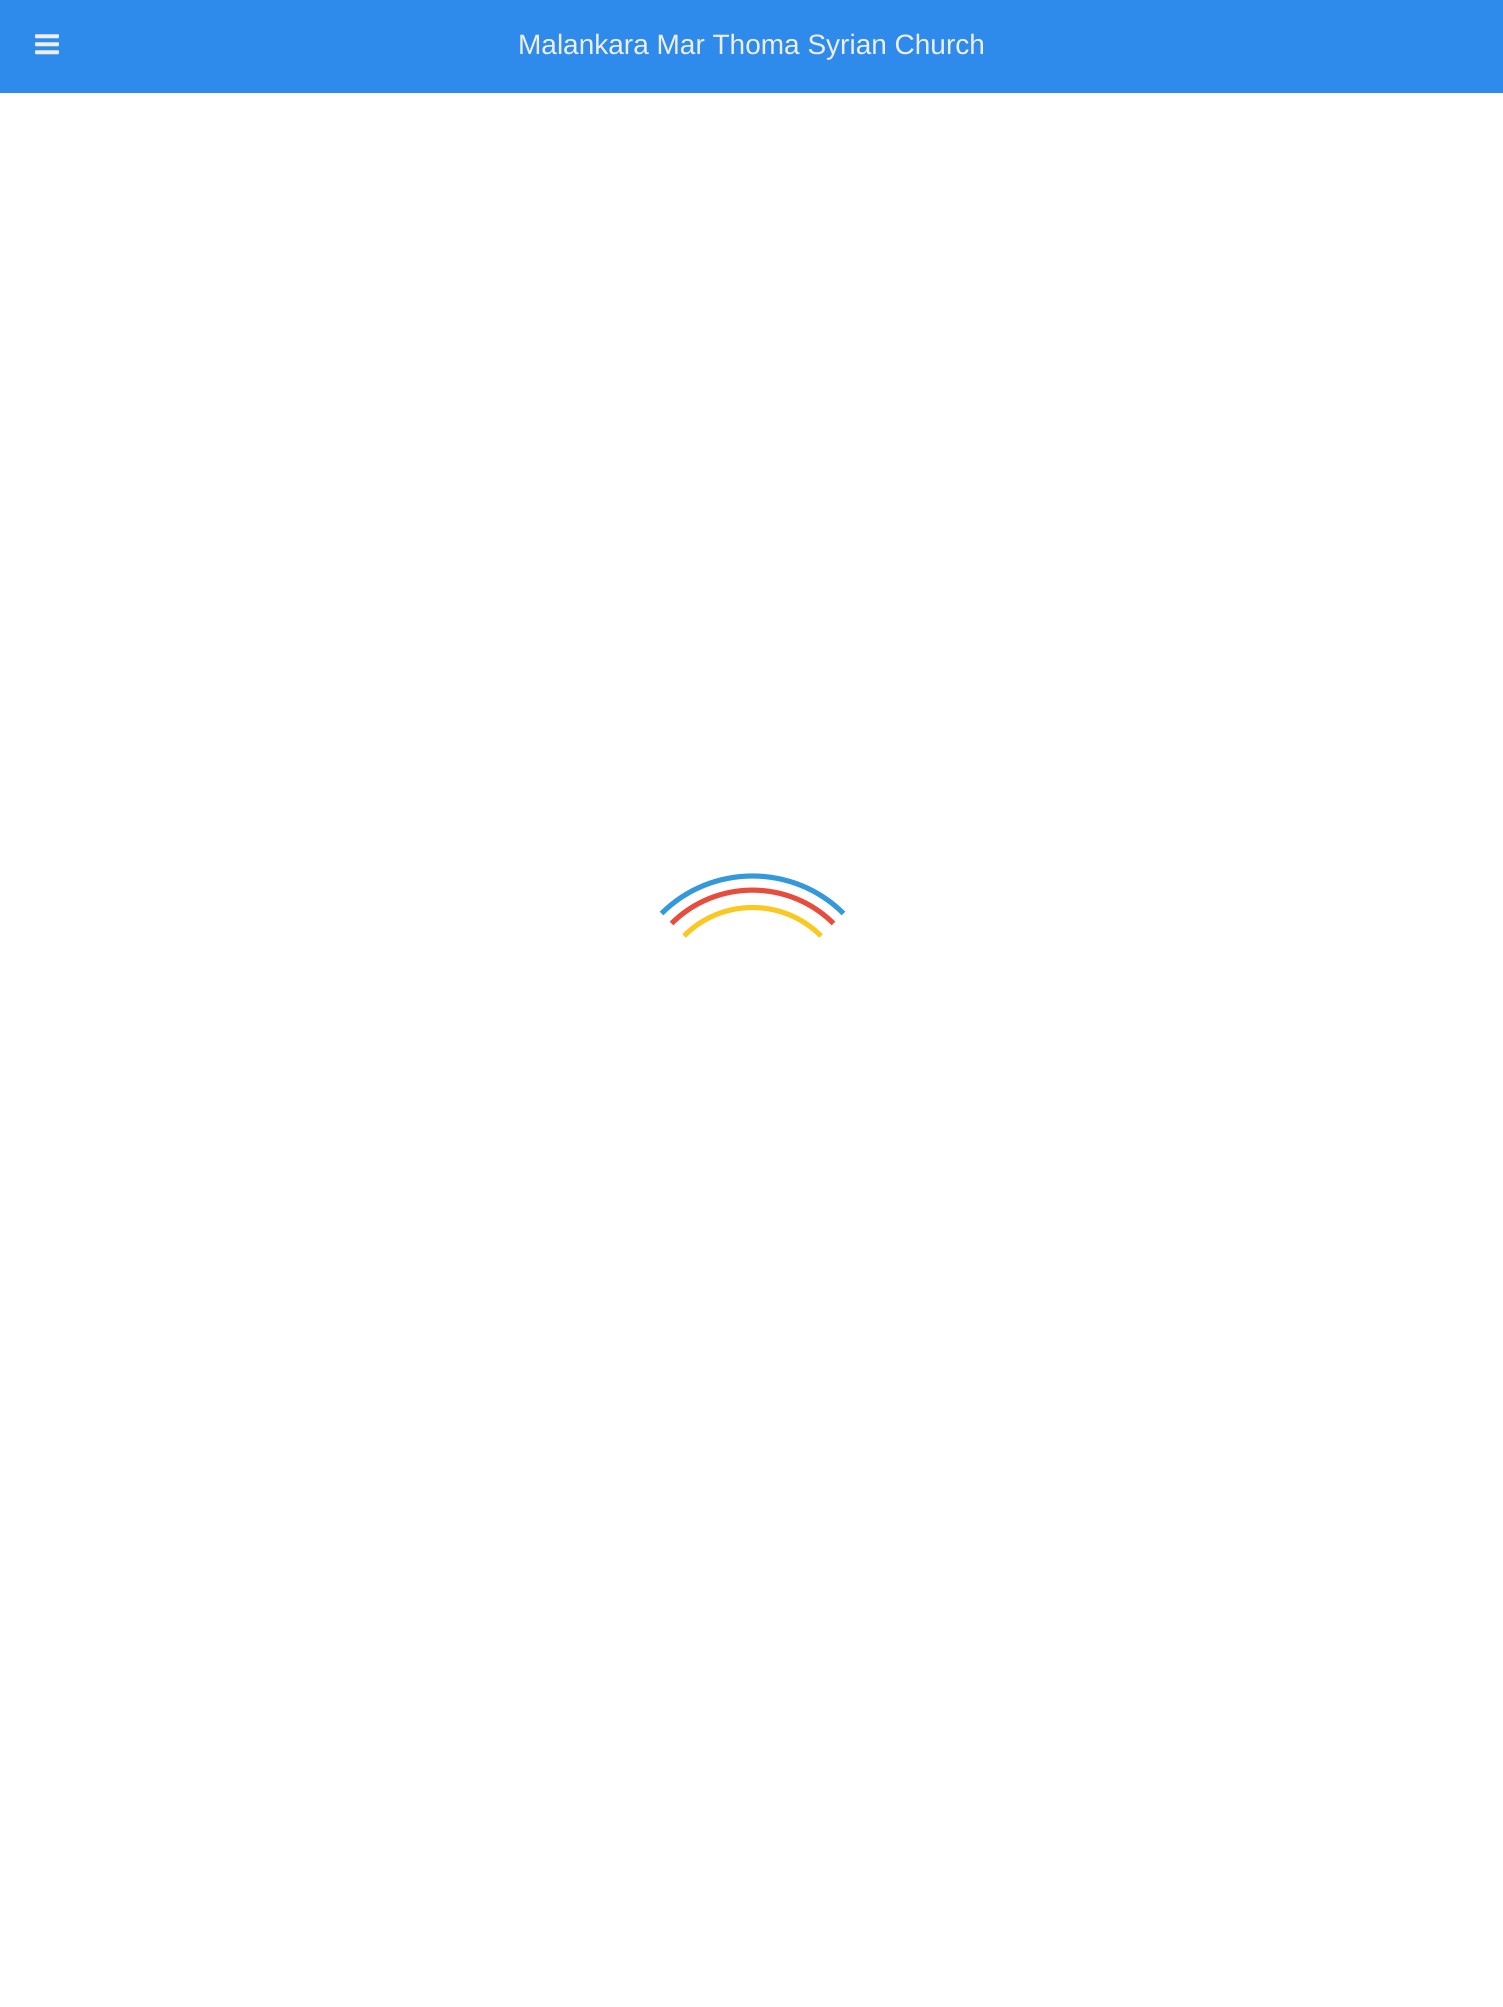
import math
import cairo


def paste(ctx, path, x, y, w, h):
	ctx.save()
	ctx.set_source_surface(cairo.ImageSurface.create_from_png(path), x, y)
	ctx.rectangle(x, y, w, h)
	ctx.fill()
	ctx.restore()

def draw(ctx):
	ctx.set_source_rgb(1, 1, 1)
	ctx.paint()
	ctx.set_source_rgb(0.18, 0.545, 0.918)
	ctx.rectangle(0, 0, 1503, 93)
	ctx.fill()
	paste(ctx, 'media/1.png', 35, 34, 24, 21)
	ctx.select_font_face('Liberation Sans')
	ctx.set_font_size(28)
	ctx.set_source_rgb(0.933, 0.933, 0.933)
	ctx.move_to(518, 54)
	ctx.show_text('Malankara Mar Thoma Syrian Church')
	ctx.new_path()
	ctx.move_to(661.5, 913.5)
	ctx.curve_to(711.5, 863.5, 793.5, 863.5, 843.5, 913.5)
	ctx.set_source_rgb(0.204, 0.596, 0.859)
	ctx.set_line_width(5.2)
	ctx.stroke()
	ctx.new_path()
	ctx.move_to(671.5, 923.5)
	ctx.curve_to(716, 879, 789, 879, 833.5, 923.5)
	ctx.set_source_rgb(0.906, 0.298, 0.235)
	ctx.stroke()
	ctx.new_path()
	ctx.move_to(684, 936)
	ctx.curve_to(721.5, 898, 783.5, 898, 821, 936)
	ctx.set_source_rgb(0.976, 0.788, 0.133)
	ctx.stroke()


surface = cairo.ImageSurface(cairo.FORMAT_RGB24, 1503, 2007)
ctx = cairo.Context(surface)
options = cairo.FontOptions()
options.set_hint_metrics(cairo.HINT_METRICS_OFF)
options.set_hint_style(cairo.HINT_STYLE_NONE)
ctx.set_font_options(options)
ctx.set_miter_limit(4)
draw(ctx)
surface.write_to_png('image.png')
